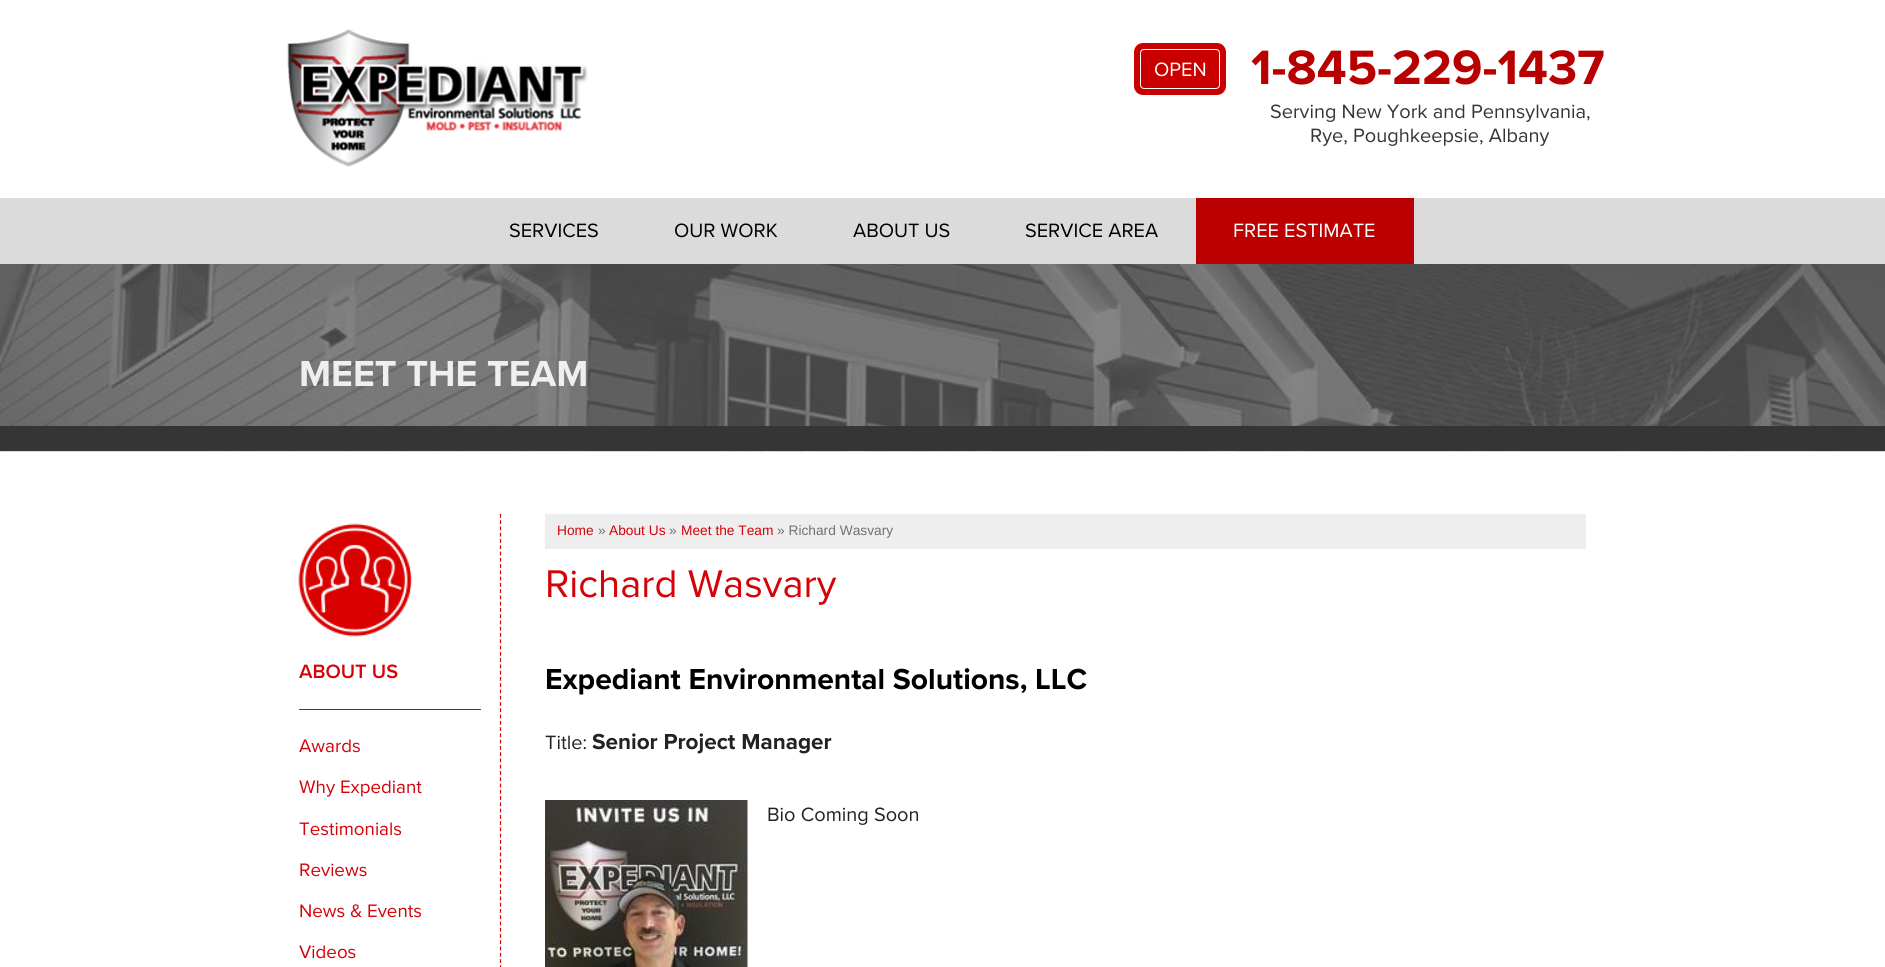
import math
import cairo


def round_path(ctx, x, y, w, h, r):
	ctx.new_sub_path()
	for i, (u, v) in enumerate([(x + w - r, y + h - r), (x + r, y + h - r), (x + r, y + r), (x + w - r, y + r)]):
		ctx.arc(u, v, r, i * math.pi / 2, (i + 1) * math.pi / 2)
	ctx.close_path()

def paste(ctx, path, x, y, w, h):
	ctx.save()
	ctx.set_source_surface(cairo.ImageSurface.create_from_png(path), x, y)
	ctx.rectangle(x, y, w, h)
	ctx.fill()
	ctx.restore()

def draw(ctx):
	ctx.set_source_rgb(1, 1, 1)
	ctx.paint()
	paste(ctx, 'media/1.png', 287, 29, 301, 138)
	ctx.set_source_rgb(0.792, 0, 0)
	round_path(ctx, 1134, 43, 92, 52, 9)
	ctx.fill()
	round_path(ctx, 1140.5, 49.5, 79, 39, 3.5)
	ctx.set_source_rgb(1, 1, 1)
	ctx.set_line_width(1)
	ctx.stroke()
	ctx.select_font_face('Proxima Nova')
	ctx.set_font_size(20)
	ctx.move_to(1154, 76)
	ctx.show_text('OPEN')
	ctx.select_font_face('Proxima Nova', cairo.FONT_SLANT_NORMAL, cairo.FONT_WEIGHT_BOLD)
	ctx.set_font_size(50)
	ctx.set_source_rgb(0.725, 0, 0)
	ctx.move_to(1251, 84)
	ctx.show_text('1-845-229-1437')
	ctx.select_font_face('Proxima Nova')
	ctx.set_font_size(20)
	ctx.set_source_rgb(0.208, 0.208, 0.208)
	ctx.move_to(1270, 118)
	ctx.show_text('Serving New York and Pennsylvania,')
	ctx.move_to(1310, 142)
	ctx.show_text('Rye, Poughkeepsie, Albany')
	ctx.set_source_rgb(0.859, 0.859, 0.859)
	ctx.rectangle(0, 198, 1885, 66)
	ctx.fill()
	ctx.set_source_rgb(0, 0, 0)
	for x, y, s in [
		(509, 237, 'SERVICES'),
		(674, 237, 'OUR WORK'),
		(853, 237, 'ABOUT US'),
		(1025, 237, 'SERVICE AREA'),
	]:
		ctx.move_to(x, y)
		ctx.show_text(s)
	ctx.set_source_rgb(0.729, 0, 0)
	ctx.rectangle(1196, 198, 218, 66)
	ctx.fill()
	ctx.set_source_rgb(1, 1, 1)
	ctx.move_to(1233, 237)
	ctx.show_text('FREE ESTIMATE')
	paste(ctx, 'media/2.png', 0, 264, 1885, 188)
	ctx.set_source_rgb(0.208, 0.208, 0.208)
	ctx.rectangle(0, 426, 1885, 25)
	ctx.fill()
	ctx.select_font_face('Proxima Nova', cairo.FONT_SLANT_NORMAL, cairo.FONT_WEIGHT_BOLD)
	ctx.set_font_size(37.5)
	ctx.set_source_rgb(0.937, 0.937, 0.937)
	ctx.move_to(299, 386)
	ctx.show_text('MEET THE TEAM')
	ctx.new_path()
	ctx.move_to(500.5, 514)
	ctx.line_to(500.5, 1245)
	ctx.set_source_rgb(0.831, 0.008, 0.031)
	ctx.set_line_width(1.2)
	ctx.set_dash([3.75, 2.52])
	ctx.stroke()
	paste(ctx, 'media/3.png', 298, 523, 114, 114)
	ctx.select_font_face('Proxima Nova SemiBold')
	ctx.set_font_size(20)
	ctx.set_source_rgb(0.835, 0.008, 0.031)
	ctx.move_to(299, 678)
	ctx.show_text('ABOUT US')
	ctx.set_source_rgb(0.831, 0.008, 0.031)
	ctx.rectangle(299, 709, 182, 1)
	ctx.fill()
	ctx.select_font_face('Proxima Nova')
	ctx.set_font_size(18.75)
	ctx.set_source_rgb(0.835, 0.008, 0.031)
	for x, y, s in [
		(299, 752, 'Awards'),
		(299, 793, 'Why Expediant'),
		(299, 835, 'Testimonials'),
		(299, 876, 'Reviews'),
		(299, 917, 'News & Events'),
		(299, 958, 'Videos'),
	]:
		ctx.move_to(x, y)
		ctx.show_text(s)
	ctx.set_source_rgb(0.933, 0.933, 0.933)
	ctx.rectangle(545, 514, 1041, 35)
	ctx.fill()
	ctx.select_font_face('Liberation Sans')
	ctx.set_font_size(13.75)
	ctx.set_source_rgb(0.835, 0.008, 0.031)
	ctx.move_to(557, 535)
	ctx.show_text('Home')
	ctx.set_source_rgb(0.443, 0.443, 0.443)
	ctx.move_to(598, 535)
	ctx.show_text('»')
	ctx.set_source_rgb(0.835, 0.008, 0.031)
	ctx.move_to(609, 535)
	ctx.show_text('About Us')
	ctx.set_source_rgb(0.443, 0.443, 0.443)
	ctx.move_to(669, 535)
	ctx.show_text('»')
	ctx.set_source_rgb(0.835, 0.008, 0.031)
	ctx.move_to(681, 535)
	ctx.show_text('Meet the Team')
	ctx.set_source_rgb(0.443, 0.443, 0.443)
	ctx.move_to(777, 535)
	ctx.show_text('» Richard Wasvary')
	ctx.select_font_face('Proxima Nova')
	ctx.set_font_size(40)
	ctx.set_source_rgb(0.835, 0.008, 0.031)
	ctx.move_to(545, 597)
	ctx.show_text('Richard Wasvary')
	ctx.select_font_face('Proxima Nova', cairo.FONT_SLANT_NORMAL, cairo.FONT_WEIGHT_BOLD)
	ctx.set_font_size(30)
	ctx.set_source_rgb(0, 0, 0)
	ctx.move_to(545, 689)
	ctx.show_text('Expediant Environmental Solutions, LLC')
	ctx.select_font_face('Proxima Nova')
	ctx.set_font_size(20)
	ctx.set_source_rgb(0.133, 0.133, 0.133)
	ctx.move_to(545, 749)
	ctx.show_text('Title:')
	ctx.select_font_face('Proxima Nova', cairo.FONT_SLANT_NORMAL, cairo.FONT_WEIGHT_BOLD)
	ctx.set_font_size(22.5)
	ctx.move_to(592, 749)
	ctx.show_text('Senior Project Manager')
	paste(ctx, 'media/4.png', 545, 800, 203, 167)
	ctx.select_font_face('Proxima Nova')
	ctx.set_font_size(20)
	ctx.move_to(767, 821)
	ctx.show_text('Bio Coming Soon')


surface = cairo.ImageSurface(cairo.FORMAT_RGB24, 1885, 967)
ctx = cairo.Context(surface)
options = cairo.FontOptions()
options.set_hint_metrics(cairo.HINT_METRICS_OFF)
options.set_hint_style(cairo.HINT_STYLE_NONE)
ctx.set_font_options(options)
ctx.set_miter_limit(4)
draw(ctx)
surface.write_to_png('image.png')
